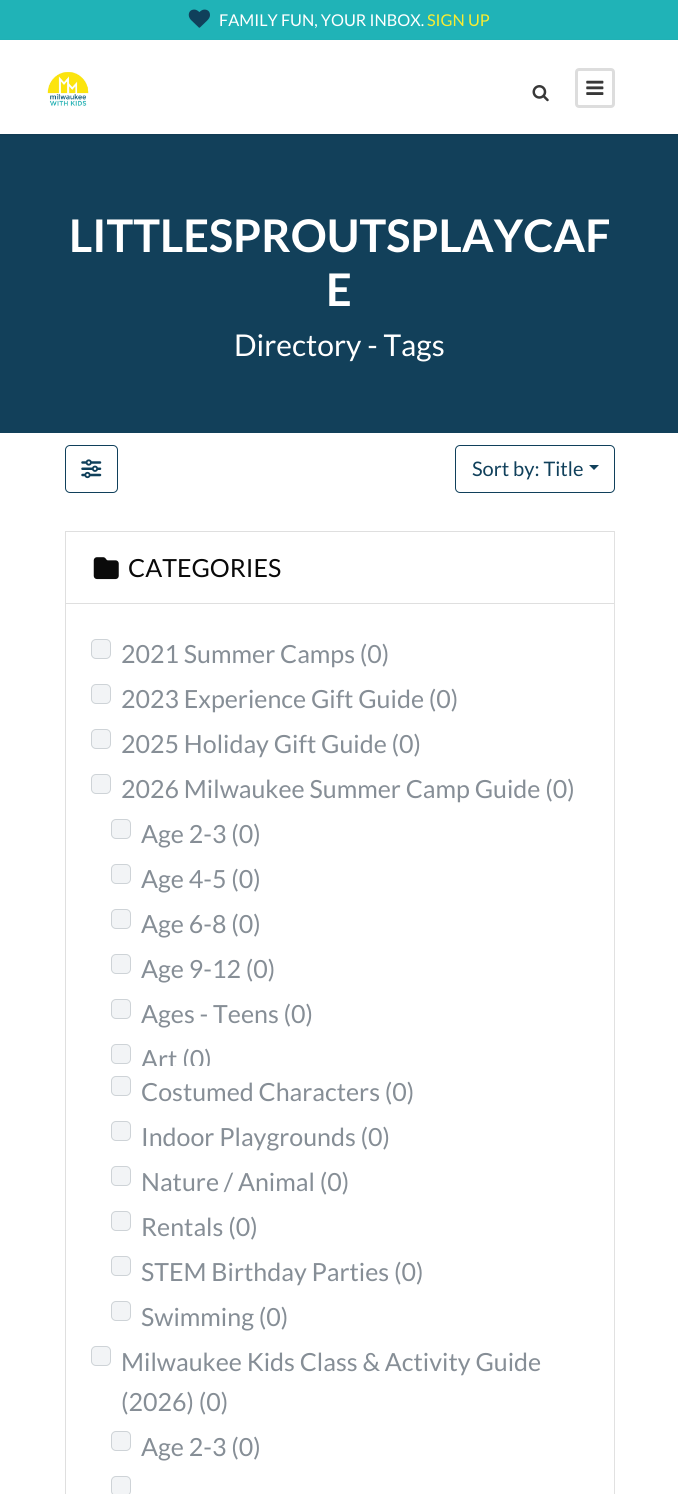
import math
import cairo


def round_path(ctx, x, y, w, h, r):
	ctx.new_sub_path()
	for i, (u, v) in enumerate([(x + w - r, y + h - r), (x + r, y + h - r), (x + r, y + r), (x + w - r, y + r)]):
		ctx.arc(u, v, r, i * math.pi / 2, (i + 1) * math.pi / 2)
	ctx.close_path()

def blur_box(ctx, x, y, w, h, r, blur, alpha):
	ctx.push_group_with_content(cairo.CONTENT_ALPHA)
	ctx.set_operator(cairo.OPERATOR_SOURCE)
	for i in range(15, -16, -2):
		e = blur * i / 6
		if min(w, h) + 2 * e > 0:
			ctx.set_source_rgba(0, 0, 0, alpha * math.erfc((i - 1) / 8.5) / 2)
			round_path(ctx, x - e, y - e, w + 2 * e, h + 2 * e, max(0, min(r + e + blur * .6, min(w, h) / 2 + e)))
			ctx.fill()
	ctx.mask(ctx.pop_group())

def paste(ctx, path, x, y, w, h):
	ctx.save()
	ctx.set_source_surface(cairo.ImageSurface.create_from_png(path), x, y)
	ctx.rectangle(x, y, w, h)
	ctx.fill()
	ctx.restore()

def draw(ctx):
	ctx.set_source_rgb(1, 1, 1)
	ctx.paint()
	ctx.set_source_rgb(0.125, 0.702, 0.718)
	ctx.rectangle(0, 0, 678, 40)
	ctx.fill()
	paste(ctx, 'media/1.png', 188, 9, 22, 19)
	ctx.select_font_face('Lato')
	ctx.set_font_size(16.25)
	ctx.set_source_rgb(1, 1, 1)
	ctx.move_to(219, 26)
	ctx.show_text('FAMILY FUN, YOUR INBOX.')
	ctx.set_source_rgb(0.976, 0.925, 0.192)
	ctx.move_to(427, 26)
	ctx.show_text('SIGN UP')
	ctx.set_source_rgb(0.071, 0.251, 0.353)
	ctx.rectangle(0, 134, 678, 299)
	ctx.fill()
	ctx.set_source_rgb(0, 0, 0)
	blur_box(ctx, 0, 41, 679, 94, 0, 1, 0.1)
	ctx.set_source_rgb(1, 1, 1)
	ctx.rectangle(0, 40, 678, 94)
	ctx.fill()
	paste(ctx, 'media/2.png', 47, 72, 42, 35)
	paste(ctx, 'media/3.png', 532, 85, 17, 17)
	round_path(ctx, 576.5, 69.5, 37, 37, 2.5)
	ctx.set_source_rgb(0.867, 0.867, 0.867)
	ctx.set_line_width(3)
	ctx.stroke()
	paste(ctx, 'media/4.png', 586, 80, 18, 15)
	ctx.select_font_face('Lato', cairo.FONT_SLANT_NORMAL, cairo.FONT_WEIGHT_BOLD)
	ctx.set_font_size(45)
	ctx.set_source_rgb(1, 1, 1)
	ctx.move_to(69, 252)
	ctx.show_text('LITTLESPROUTSPLAYCAF')
	ctx.move_to(326, 306)
	ctx.show_text('E')
	ctx.select_font_face('Lato')
	ctx.set_font_size(30)
	ctx.move_to(234, 356)
	ctx.show_text('Directory - Tags')
	round_path(ctx, 65.5, 445.5, 52, 47, 4.5)
	ctx.set_source_rgb(0.063, 0.251, 0.357)
	ctx.set_line_width(1)
	ctx.stroke()
	paste(ctx, 'media/5.png', 81, 459, 21, 20)
	round_path(ctx, 455.5, 445.5, 159, 47, 4.5)
	ctx.stroke()
	ctx.set_font_size(20)
	ctx.move_to(472, 476)
	ctx.show_text('Sort by: Title')
	ctx.new_path()
	ctx.move_to(589, 465)
	ctx.line_to(599, 465)
	ctx.line_to(594, 470)
	ctx.close_path()
	ctx.fill()
	ctx.set_source_rgb(0.875, 0.875, 0.875)
	ctx.rectangle(65, 531, 1, 963)
	ctx.fill()
	ctx.new_path()
	ctx.move_to(66, 531)
	ctx.line_to(615, 531)
	ctx.line_to(614, 532)
	ctx.line_to(66, 532)
	ctx.close_path()
	ctx.fill()
	ctx.set_source_rgba(0, 0, 0, 0.12)
	ctx.new_path()
	ctx.move_to(615, 531)
	ctx.line_to(615, 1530)
	ctx.line_to(614, 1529)
	ctx.line_to(614, 532)
	ctx.close_path()
	ctx.fill()
	ctx.set_source_rgb(0.875, 0.875, 0.875)
	ctx.rectangle(66, 603, 548, 1)
	ctx.fill()
	paste(ctx, 'media/6.png', 93, 557, 26, 23)
	ctx.set_font_size(25)
	ctx.set_source_rgb(0.039, 0.039, 0.039)
	ctx.move_to(128, 577)
	ctx.show_text('CATEGORIES')
	ctx.set_source_rgb(0.949, 0.957, 0.961)
	round_path(ctx, 91.5, 639.5, 19, 19, 4.5)
	ctx.fill_preserve()
	ctx.set_source_rgb(0.808, 0.827, 0.843)
	ctx.stroke()
	ctx.set_source_rgb(0.525, 0.557, 0.588)
	ctx.move_to(121, 663)
	ctx.show_text('2021 Summer Camps (0)')
	ctx.set_source_rgb(0.949, 0.957, 0.961)
	round_path(ctx, 91.5, 684.5, 19, 19, 4.5)
	ctx.fill_preserve()
	ctx.set_source_rgb(0.808, 0.827, 0.843)
	ctx.stroke()
	ctx.set_source_rgb(0.525, 0.557, 0.588)
	ctx.move_to(121, 708)
	ctx.show_text('2023 Experience Gift Guide (0)')
	ctx.set_source_rgb(0.949, 0.957, 0.961)
	round_path(ctx, 91.5, 729.5, 19, 19, 4.5)
	ctx.fill_preserve()
	ctx.set_source_rgb(0.808, 0.827, 0.843)
	ctx.stroke()
	ctx.set_source_rgb(0.525, 0.557, 0.588)
	ctx.move_to(121, 753)
	ctx.show_text('2025 Holiday Gift Guide (0)')
	ctx.set_source_rgb(0.949, 0.957, 0.961)
	round_path(ctx, 91.5, 774.5, 19, 19, 4.5)
	ctx.fill_preserve()
	ctx.set_source_rgb(0.808, 0.827, 0.843)
	ctx.stroke()
	ctx.set_source_rgb(0.525, 0.557, 0.588)
	ctx.move_to(121, 798)
	ctx.show_text('2026 Milwaukee Summer Camp Guide (0)')
	ctx.set_source_rgb(0.949, 0.957, 0.961)
	round_path(ctx, 111.5, 819.5, 19, 19, 4.5)
	ctx.fill_preserve()
	ctx.set_source_rgb(0.808, 0.827, 0.843)
	ctx.stroke()
	ctx.set_source_rgb(0.525, 0.557, 0.588)
	ctx.move_to(141, 843)
	ctx.show_text('Age 2-3 (0)')
	ctx.set_source_rgb(0.949, 0.957, 0.961)
	round_path(ctx, 111.5, 864.5, 19, 19, 4.5)
	ctx.fill_preserve()
	ctx.set_source_rgb(0.808, 0.827, 0.843)
	ctx.stroke()
	ctx.set_source_rgb(0.525, 0.557, 0.588)
	ctx.move_to(141, 888)
	ctx.show_text('Age 4-5 (0)')
	ctx.set_source_rgb(0.949, 0.957, 0.961)
	round_path(ctx, 111.5, 909.5, 19, 19, 4.5)
	ctx.fill_preserve()
	ctx.set_source_rgb(0.808, 0.827, 0.843)
	ctx.stroke()
	ctx.set_source_rgb(0.525, 0.557, 0.588)
	ctx.move_to(141, 933)
	ctx.show_text('Age 6-8 (0)')
	ctx.set_source_rgb(0.949, 0.957, 0.961)
	round_path(ctx, 111.5, 954.5, 19, 19, 4.5)
	ctx.fill_preserve()
	ctx.set_source_rgb(0.808, 0.827, 0.843)
	ctx.stroke()
	ctx.set_source_rgb(0.525, 0.557, 0.588)
	ctx.move_to(141, 978)
	ctx.show_text('Age 9-12 (0)')
	ctx.set_source_rgb(0.949, 0.957, 0.961)
	round_path(ctx, 111.5, 999.5, 19, 19, 4.5)
	ctx.fill_preserve()
	ctx.set_source_rgb(0.808, 0.827, 0.843)
	ctx.stroke()
	ctx.set_source_rgb(0.525, 0.557, 0.588)
	ctx.move_to(141, 1023)
	ctx.show_text('Ages - Teens (0)')
	ctx.set_source_rgb(0.949, 0.957, 0.961)
	round_path(ctx, 111.5, 1044.5, 19, 19, 4.5)
	ctx.fill_preserve()
	ctx.set_source_rgb(0.808, 0.827, 0.843)
	ctx.stroke()
	ctx.save()
	ctx.rectangle(91, 629, 498, 437)
	ctx.clip()
	ctx.set_source_rgb(0.525, 0.557, 0.588)
	ctx.move_to(141, 1068)
	ctx.show_text('Art (0)')
	ctx.restore()
	ctx.set_source_rgb(0.949, 0.957, 0.961)
	round_path(ctx, 111.5, 1076.5, 19, 19, 4.5)
	ctx.fill_preserve()
	ctx.set_source_rgb(0.808, 0.827, 0.843)
	ctx.stroke()
	ctx.set_source_rgb(0.525, 0.557, 0.588)
	ctx.move_to(141, 1101)
	ctx.show_text('Costumed Characters (0)')
	ctx.set_source_rgb(0.949, 0.957, 0.961)
	round_path(ctx, 111.5, 1121.5, 19, 19, 4.5)
	ctx.fill_preserve()
	ctx.set_source_rgb(0.808, 0.827, 0.843)
	ctx.stroke()
	ctx.set_source_rgb(0.525, 0.557, 0.588)
	ctx.move_to(141, 1146)
	ctx.show_text('Indoor Playgrounds (0)')
	ctx.set_source_rgb(0.949, 0.957, 0.961)
	round_path(ctx, 111.5, 1166.5, 19, 19, 4.5)
	ctx.fill_preserve()
	ctx.set_source_rgb(0.808, 0.827, 0.843)
	ctx.stroke()
	ctx.set_source_rgb(0.525, 0.557, 0.588)
	ctx.move_to(141, 1191)
	ctx.show_text('Nature / Animal (0)')
	ctx.set_source_rgb(0.949, 0.957, 0.961)
	round_path(ctx, 111.5, 1211.5, 19, 19, 4.5)
	ctx.fill_preserve()
	ctx.set_source_rgb(0.808, 0.827, 0.843)
	ctx.stroke()
	ctx.set_source_rgb(0.525, 0.557, 0.588)
	ctx.move_to(141, 1236)
	ctx.show_text('Rentals (0)')
	ctx.set_source_rgb(0.949, 0.957, 0.961)
	round_path(ctx, 111.5, 1256.5, 19, 19, 4.5)
	ctx.fill_preserve()
	ctx.set_source_rgb(0.808, 0.827, 0.843)
	ctx.stroke()
	ctx.set_source_rgb(0.525, 0.557, 0.588)
	ctx.move_to(141, 1281)
	ctx.show_text('STEM Birthday Parties (0)')
	ctx.set_source_rgb(0.949, 0.957, 0.961)
	round_path(ctx, 111.5, 1301.5, 19, 19, 4.5)
	ctx.fill_preserve()
	ctx.set_source_rgb(0.808, 0.827, 0.843)
	ctx.stroke()
	ctx.set_source_rgb(0.525, 0.557, 0.588)
	ctx.move_to(141, 1326)
	ctx.show_text('Swimming (0)')
	ctx.set_source_rgb(0.949, 0.957, 0.961)
	round_path(ctx, 91.5, 1346.5, 19, 19, 4.5)
	ctx.fill_preserve()
	ctx.set_source_rgb(0.808, 0.827, 0.843)
	ctx.stroke()
	ctx.set_source_rgb(0.525, 0.557, 0.588)
	ctx.move_to(121, 1371)
	ctx.show_text('Milwaukee Kids Class & Activity Guide')
	ctx.move_to(121, 1411)
	ctx.show_text('(2026) (0)')
	ctx.set_source_rgb(0.949, 0.957, 0.961)
	round_path(ctx, 111.5, 1431.5, 19, 19, 4.5)
	ctx.fill_preserve()
	ctx.set_source_rgb(0.808, 0.827, 0.843)
	ctx.stroke()
	ctx.set_source_rgb(0.525, 0.557, 0.588)
	ctx.move_to(141, 1456)
	ctx.show_text('Age 2-3 (0)')
	ctx.set_source_rgb(0.949, 0.957, 0.961)
	round_path(ctx, 111.5, 1476.5, 19, 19, 4.5)
	ctx.fill_preserve()
	ctx.set_source_rgb(0.808, 0.827, 0.843)
	ctx.stroke()


surface = cairo.ImageSurface(cairo.FORMAT_RGB24, 678, 1494)
ctx = cairo.Context(surface)
options = cairo.FontOptions()
options.set_hint_metrics(cairo.HINT_METRICS_OFF)
options.set_hint_style(cairo.HINT_STYLE_NONE)
ctx.set_font_options(options)
ctx.set_miter_limit(4)
draw(ctx)
surface.write_to_png('image.png')
